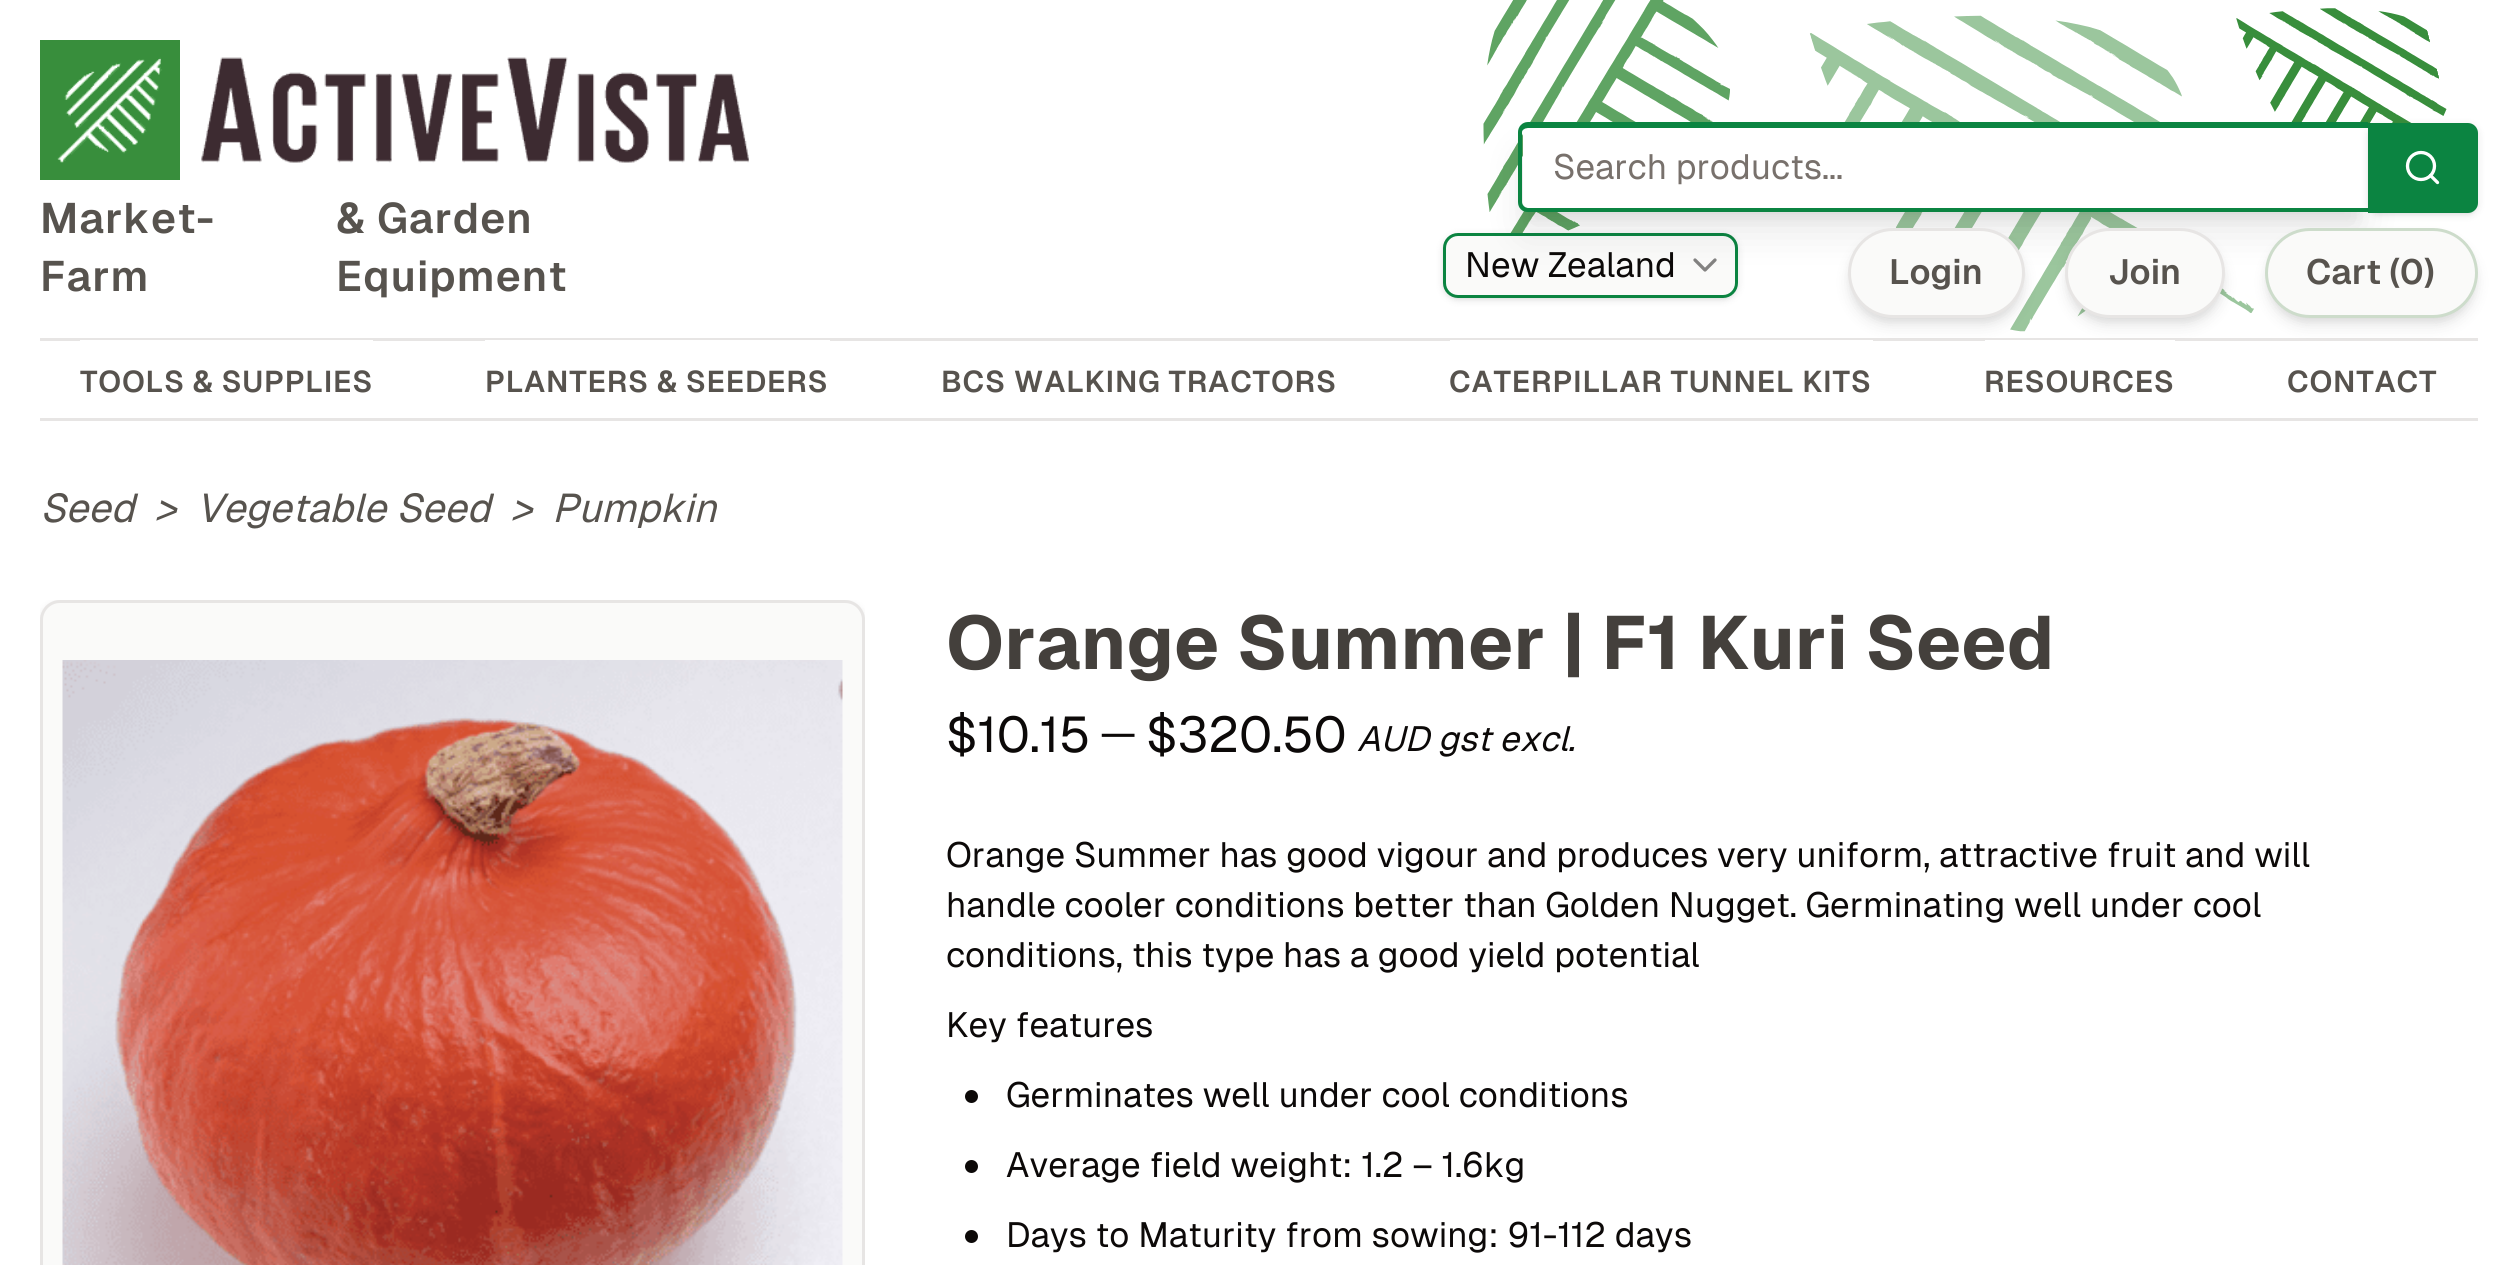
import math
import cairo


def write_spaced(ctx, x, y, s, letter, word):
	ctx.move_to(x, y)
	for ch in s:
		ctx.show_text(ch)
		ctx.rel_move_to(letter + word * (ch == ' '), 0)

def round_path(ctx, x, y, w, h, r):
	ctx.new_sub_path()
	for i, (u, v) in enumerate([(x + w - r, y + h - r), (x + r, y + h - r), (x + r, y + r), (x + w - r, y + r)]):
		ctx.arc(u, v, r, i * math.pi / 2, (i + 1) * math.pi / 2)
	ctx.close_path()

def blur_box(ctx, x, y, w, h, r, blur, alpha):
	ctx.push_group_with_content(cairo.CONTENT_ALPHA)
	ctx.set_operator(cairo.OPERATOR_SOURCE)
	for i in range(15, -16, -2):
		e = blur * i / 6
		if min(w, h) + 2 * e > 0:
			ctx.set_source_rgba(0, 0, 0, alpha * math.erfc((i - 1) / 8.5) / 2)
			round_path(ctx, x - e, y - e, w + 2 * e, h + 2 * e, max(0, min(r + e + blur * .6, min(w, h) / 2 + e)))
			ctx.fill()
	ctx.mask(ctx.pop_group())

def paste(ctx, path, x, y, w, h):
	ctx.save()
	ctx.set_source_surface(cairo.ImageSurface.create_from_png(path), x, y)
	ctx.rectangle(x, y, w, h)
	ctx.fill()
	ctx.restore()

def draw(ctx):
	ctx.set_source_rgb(1, 1, 1)
	ctx.paint()
	ctx.set_source_rgb(0.906, 0.898, 0.894)
	ctx.rectangle(40, 338, 2438, 3)
	ctx.fill()
	ctx.rectangle(40, 418, 2438, 3)
	ctx.fill()
	paste(ctx, 'media/3.png', 1483, 0, 964, 332)
	ctx.set_source_rgb(0, 0, 0)
	blur_box(ctx, 1445, 238, 290, 60, 13, 2.5, 0.1)
	blur_box(ctx, 1443, 235, 295, 65, 15, 4, 0.1)
	ctx.set_source_rgb(0.98, 0.98, 0.976)
	round_path(ctx, 1444.5, 234.5, 292, 62, 13.5)
	ctx.fill_preserve()
	ctx.set_source_rgb(0.043, 0.518, 0.255)
	ctx.set_line_width(3)
	ctx.stroke()
	ctx.set_source_rgb(0, 0, 0)
	blur_box(ctx, 1528, 143, 830, 70, 0, 7.5, 0.1)
	ctx.new_path()
	ctx.move_to(1695, 260)
	ctx.line_to(1705, 270)
	ctx.line_to(1715, 260)
	ctx.set_source_rgb(0.514, 0.51, 0.506)
	ctx.set_line_width(3.3)
	ctx.set_line_cap(cairo.LINE_CAP_ROUND)
	ctx.set_line_join(cairo.LINE_JOIN_ROUND)
	ctx.stroke()
	ctx.set_source_rgb(0, 0, 0)
	blur_box(ctx, 1525, 155, 835, 75, 2.5, 19, 0.1)
	ctx.set_source_rgb(1, 1, 1)
	ctx.new_path()
	ctx.move_to(1528, 128)
	ctx.line_to(2368, 128)
	ctx.line_to(2368, 208)
	ctx.line_to(1528, 208)
	ctx.curve_to(1525, 208, 1523, 206, 1523, 203)
	ctx.line_to(1523, 133)
	ctx.curve_to(1523, 130, 1525, 128, 1528, 128)
	ctx.close_path()
	ctx.fill()
	ctx.set_source_rgb(0.043, 0.518, 0.255)
	ctx.set_fill_rule(cairo.FILL_RULE_EVEN_ODD)
	ctx.new_path()
	ctx.move_to(1528, 122)
	ctx.line_to(2368, 122)
	ctx.line_to(2368, 212)
	ctx.line_to(1528, 212)
	ctx.curve_to(1522, 212, 1518, 208, 1518, 202)
	ctx.line_to(1518, 132)
	ctx.curve_to(1518, 127, 1522, 122, 1528, 122)
	ctx.close_path()
	ctx.move_to(1528, 128)
	ctx.line_to(2368, 128)
	ctx.line_to(2368, 208)
	ctx.line_to(1528, 208)
	ctx.curve_to(1525, 208, 1522, 205, 1522, 202)
	ctx.line_to(1522, 132)
	ctx.curve_to(1522, 130, 1525, 128, 1528, 128)
	ctx.close_path()
	ctx.fill()
	ctx.select_font_face('Geist')
	ctx.set_font_size(35)
	ctx.set_source_rgb(0.471, 0.443, 0.424)
	ctx.move_to(1553, 179)
	ctx.show_text('Search products...')
	ctx.set_source_rgb(0, 0, 0)
	blur_box(ctx, 2370, 128, 105, 85, 8, 2.5, 0.1)
	blur_box(ctx, 2368, 125, 110, 90, 10, 4, 0.1)
	ctx.set_source_rgb(0.043, 0.518, 0.255)
	ctx.new_path()
	ctx.move_to(2370.5, 125.5)
	ctx.line_to(2468, 125.5)
	ctx.curve_to(2472, 125.5, 2475.5, 129, 2475.5, 133)
	ctx.line_to(2475.5, 203)
	ctx.curve_to(2475.5, 207, 2472, 210.5, 2468, 210.5)
	ctx.line_to(2370.5, 210.5)
	ctx.close_path()
	ctx.fill_preserve()
	ctx.set_line_width(5)
	ctx.set_line_cap(cairo.LINE_CAP_BUTT)
	ctx.set_line_join(cairo.LINE_JOIN_MITER)
	ctx.stroke()
	ctx.arc(2421, 166, 13.5, 0, 2 * math.pi)
	ctx.set_source_rgb(1, 1, 1)
	ctx.set_line_width(3.3)
	ctx.stroke()
	ctx.new_path()
	ctx.move_to(2437.5, 182.5)
	ctx.line_to(2430.5, 175.5)
	ctx.set_line_cap(cairo.LINE_CAP_ROUND)
	ctx.set_line_join(cairo.LINE_JOIN_ROUND)
	ctx.stroke()
	ctx.set_source_rgb(0, 0, 0)
	blur_box(ctx, 1853, 238, 167, 80, 40, 5, 0.1)
	blur_box(ctx, 1850, 240, 173, 85, 42.5, 7.5, 0.1)
	ctx.set_source_rgb(0.98, 0.98, 0.976)
	round_path(ctx, 1849.5, 229.5, 174, 87, 43.5)
	ctx.fill_preserve()
	ctx.set_source_rgb(0.906, 0.898, 0.894)
	ctx.set_line_width(3)
	ctx.set_line_cap(cairo.LINE_CAP_BUTT)
	ctx.set_line_join(cairo.LINE_JOIN_MITER)
	ctx.stroke()
	ctx.select_font_face('Geist SemiBold')
	ctx.set_source_rgb(0.341, 0.325, 0.306)
	ctx.move_to(1889, 284)
	ctx.show_text('Login')
	ctx.set_source_rgb(0, 0, 0)
	blur_box(ctx, 2070, 238, 150, 80, 40, 5, 0.1)
	blur_box(ctx, 2068, 240, 155, 85, 42.5, 7.5, 0.1)
	ctx.set_source_rgb(0.98, 0.98, 0.976)
	round_path(ctx, 2066.5, 229.5, 157, 87, 43.5)
	ctx.fill_preserve()
	ctx.set_source_rgb(0.906, 0.898, 0.894)
	ctx.stroke()
	ctx.set_source_rgb(0.341, 0.325, 0.306)
	ctx.move_to(2108, 284)
	ctx.show_text('Join')
	ctx.set_source_rgb(0, 0, 0)
	blur_box(ctx, 2270, 238, 203, 80, 40, 5, 0.1)
	blur_box(ctx, 2268, 240, 207, 85, 42.5, 7.5, 0.1)
	ctx.set_source_rgb(0.98, 0.98, 0.976)
	round_path(ctx, 2266.5, 229.5, 210, 87, 43.5)
	ctx.fill_preserve()
	ctx.set_source_rgb(0.804, 0.863, 0.796)
	ctx.stroke()
	ctx.set_source_rgb(0.341, 0.325, 0.306)
	ctx.move_to(2306, 284)
	ctx.show_text('Cart (0)')
	ctx.set_source_rgb(1, 1, 1)
	ctx.rectangle(80, 340, 293, 1)
	ctx.fill()
	ctx.set_font_size(30)
	ctx.set_source_rgb(0.341, 0.325, 0.306)
	write_spaced(ctx, 80, 392, 'TOOLS & SUPPLIES', 0.75, 0)
	ctx.set_source_rgb(1, 1, 1)
	ctx.rectangle(485, 340, 345, 1)
	ctx.fill()
	ctx.set_source_rgb(0.341, 0.325, 0.306)
	write_spaced(ctx, 485, 392, 'PLANTERS & SEEDERS', 0.75, 0)
	write_spaced(ctx, 941, 392, 'BCS WALKING TRACTORS', 0.75, 0)
	ctx.set_source_rgb(1, 1, 1)
	ctx.rectangle(1450, 340, 423, 1)
	ctx.fill()
	ctx.set_source_rgb(0.341, 0.325, 0.306)
	write_spaced(ctx, 1449, 392, 'CATERPILLAR TUNNEL KITS', 0.75, 0)
	ctx.set_source_rgb(1, 1, 1)
	ctx.rectangle(1985, 340, 190, 1)
	ctx.fill()
	ctx.set_source_rgb(0.341, 0.325, 0.306)
	write_spaced(ctx, 1984, 392, 'RESOURCES', 0.75, 0)
	write_spaced(ctx, 2287, 392, 'CONTACT', 0.75, 0)
	paste(ctx, 'media/1.png', 40, 40, 140, 140)
	paste(ctx, 'media/2.png', 201, 57, 548, 106)
	ctx.set_font_size(42.5)
	for x, y, s in [
		(40, 233, 'Market-'),
		(40, 291, 'Farm'),
		(336, 233, '& Garden'),
		(336, 291, 'Equipment'),
	]:
		write_spaced(ctx, x, y, s, 1, 0)
	ctx.select_font_face('Geist')
	ctx.set_font_size(35)
	ctx.set_source_rgb(0.047, 0.039, 0.035)
	ctx.move_to(1465, 277)
	ctx.show_text('New Zealand')
	ctx.select_font_face('Geist', cairo.FONT_SLANT_ITALIC)
	ctx.set_font_size(40)
	ctx.set_source_rgb(0.341, 0.325, 0.306)
	for x, y, s in [
		(40, 522, 'Seed'),
		(154, 522, '>'),
		(196, 522, 'Vegetable Seed'),
		(510, 522, '>'),
		(552, 522, 'Pumpkin'),
	]:
		ctx.move_to(x, y)
		ctx.show_text(s)
	ctx.save()
	ctx.set_fill_rule(cairo.FILL_RULE_WINDING)
	ctx.rectangle(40, 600, 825, 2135)
	ctx.clip()
	ctx.set_source_rgb(0, 0, 0)
	blur_box(ctx, 40, 603, 825, 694, 20, 4, 0.1)
	ctx.restore()
	ctx.set_source_rgb(0.98, 0.98, 0.976)
	round_path(ctx, 41.5, 601.5, 822, 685, 18.5)
	ctx.fill_preserve()
	ctx.set_source_rgb(0.906, 0.898, 0.894)
	ctx.stroke()
	paste(ctx, 'media/4.png', 62, 660, 781, 605)
	ctx.select_font_face('Geist', cairo.FONT_SLANT_NORMAL, cairo.FONT_WEIGHT_BOLD)
	ctx.set_font_size(75)
	ctx.set_source_rgb(0.267, 0.251, 0.235)
	ctx.move_to(946, 669)
	ctx.show_text('Orange Summer | F1 Kuri Seed')
	ctx.select_font_face('Geist')
	ctx.set_font_size(50)
	ctx.set_source_rgb(0.047, 0.039, 0.035)
	ctx.move_to(946, 752)
	ctx.show_text('$10.15')
	ctx.set_font_size(40)
	ctx.move_to(1100, 747)
	ctx.show_text('—')
	ctx.set_font_size(50)
	ctx.move_to(1146, 752)
	ctx.show_text('$320.50')
	ctx.select_font_face('Geist', cairo.FONT_SLANT_ITALIC)
	ctx.set_font_size(35)
	ctx.move_to(1357, 751)
	ctx.show_text('AUD gst excl.')
	ctx.select_font_face('Geist')
	for x, y, s in [
		(946, 867, 'Orange Summer has good vigour and produces very uniform, attractive fruit and will'),
		(946, 917, 'handle cooler conditions better than Golden Nugget. Germinating well under cool'),
		(946, 967, 'conditions, this type has a good yield potential'),
		(946, 1037, 'Key features'),
	]:
		ctx.move_to(x, y)
		ctx.show_text(s)
	ctx.new_path()
	ctx.arc(971.5, 1096.5, 6.5, 0, 2 * math.pi)
	ctx.fill()
	ctx.move_to(1006, 1107)
	ctx.show_text('Germinates well under cool conditions')
	ctx.new_path()
	ctx.arc(971.5, 1166.5, 6.5, 0, 2 * math.pi)
	ctx.fill()
	ctx.move_to(1006, 1177)
	ctx.show_text('Average field weight: 1.2 – 1.6kg')
	ctx.new_path()
	ctx.arc(971.5, 1236.5, 6.5, 0, 2 * math.pi)
	ctx.fill()
	ctx.move_to(1006, 1247)
	ctx.show_text('Days to Maturity from sowing: 91-112 days')


surface = cairo.ImageSurface(cairo.FORMAT_RGB24, 2516, 1265)
ctx = cairo.Context(surface)
options = cairo.FontOptions()
options.set_hint_metrics(cairo.HINT_METRICS_OFF)
options.set_hint_style(cairo.HINT_STYLE_NONE)
ctx.set_font_options(options)
ctx.set_miter_limit(4)
draw(ctx)
surface.write_to_png('image.png')
